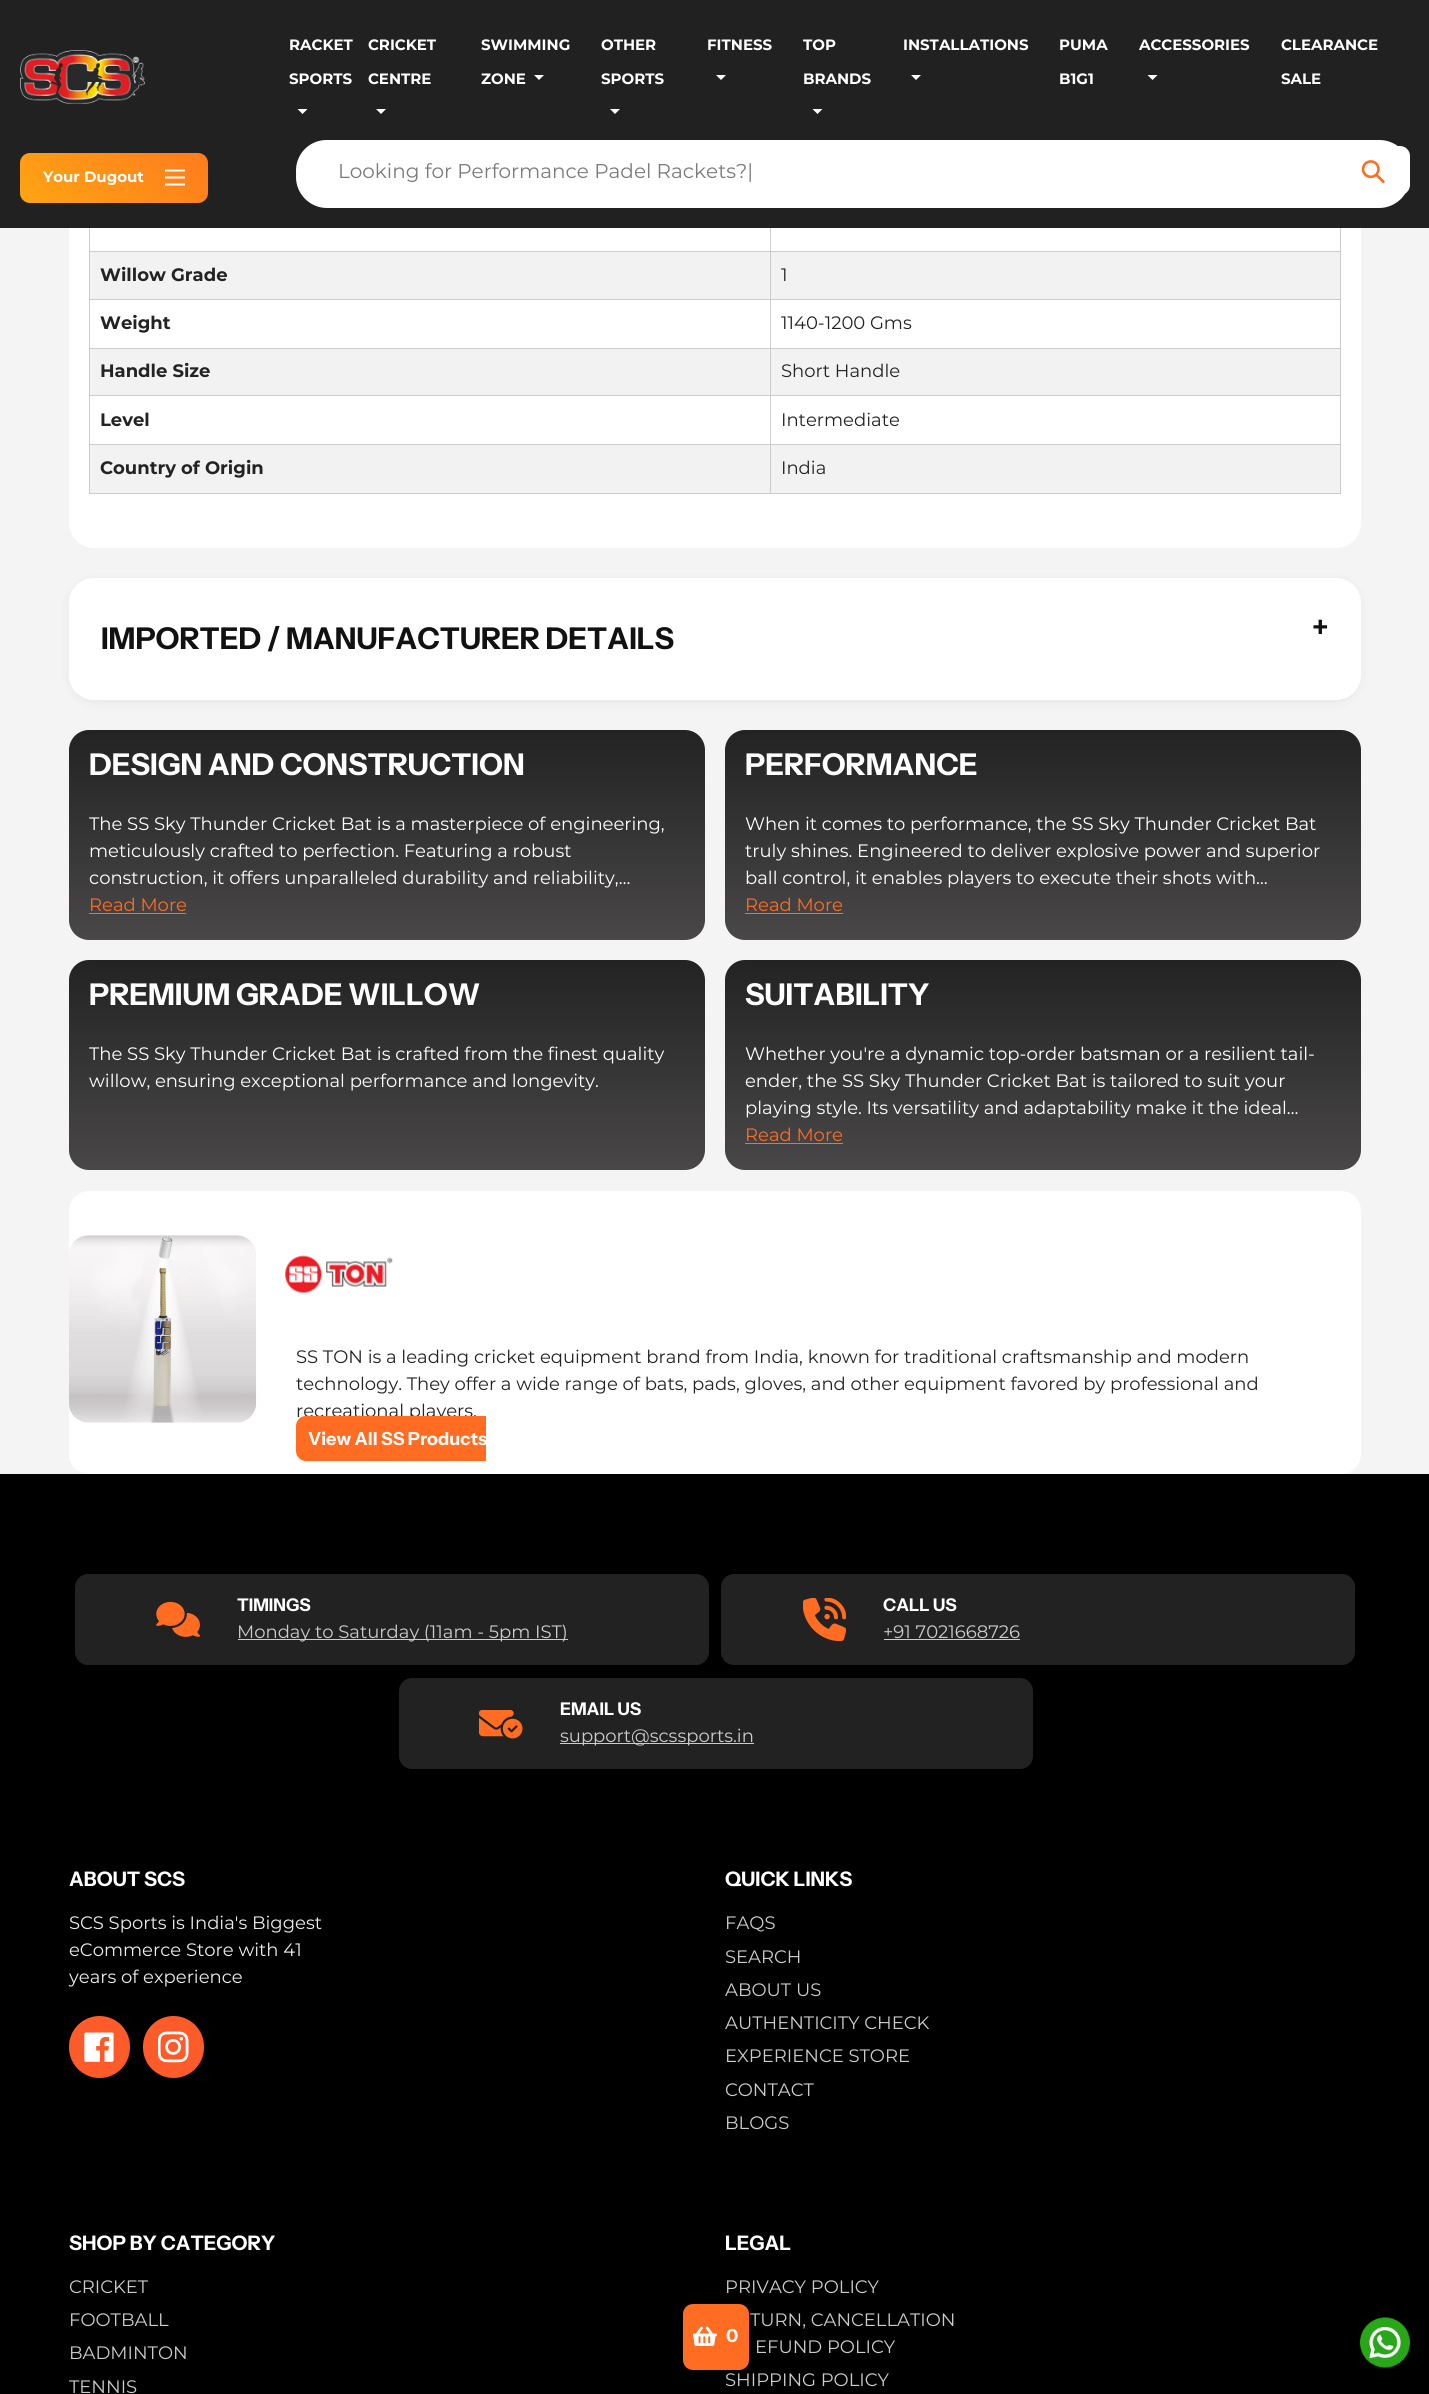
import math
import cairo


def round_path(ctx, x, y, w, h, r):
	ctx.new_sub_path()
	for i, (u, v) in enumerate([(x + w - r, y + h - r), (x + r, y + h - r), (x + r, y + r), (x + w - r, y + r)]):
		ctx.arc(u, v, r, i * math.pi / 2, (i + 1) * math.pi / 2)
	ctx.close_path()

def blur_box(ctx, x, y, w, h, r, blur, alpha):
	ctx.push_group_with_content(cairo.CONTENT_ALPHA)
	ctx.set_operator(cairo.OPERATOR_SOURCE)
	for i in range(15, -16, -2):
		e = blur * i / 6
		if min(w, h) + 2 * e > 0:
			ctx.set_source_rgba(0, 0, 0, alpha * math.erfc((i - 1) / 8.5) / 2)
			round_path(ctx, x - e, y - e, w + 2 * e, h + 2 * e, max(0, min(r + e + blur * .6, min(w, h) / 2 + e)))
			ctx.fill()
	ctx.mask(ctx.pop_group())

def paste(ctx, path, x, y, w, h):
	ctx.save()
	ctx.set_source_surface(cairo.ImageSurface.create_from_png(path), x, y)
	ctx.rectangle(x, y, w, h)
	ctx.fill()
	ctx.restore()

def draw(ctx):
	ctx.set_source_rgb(0.957, 0.957, 0.957)
	ctx.paint()
	ctx.set_source_rgb(1, 1, 1)
	round_path(ctx, 69, 79, 1292, 469, 25)
	ctx.fill()
	ctx.set_source_rgb(0.129, 0.129, 0.129)
	ctx.rectangle(0, 0, 1429, 228)
	ctx.fill()
	paste(ctx, 'media/1.png', 20, 50, 125, 54)
	ctx.select_font_face('Montserrat', cairo.FONT_SLANT_NORMAL, cairo.FONT_WEIGHT_BOLD)
	ctx.set_font_size(15)
	ctx.set_source_rgb(1, 1, 1)
	ctx.move_to(289, 50)
	ctx.show_text('RACKET')
	ctx.move_to(289, 84)
	ctx.show_text('SPORTS')
	ctx.new_path()
	ctx.move_to(307.5, 109)
	ctx.line_to(302.5, 114)
	ctx.line_to(297.5, 109)
	ctx.fill()
	ctx.move_to(368, 50)
	ctx.show_text('CRICKET')
	ctx.move_to(368, 84)
	ctx.show_text('CENTRE')
	ctx.new_path()
	ctx.move_to(386, 109)
	ctx.line_to(381, 114)
	ctx.line_to(376, 109)
	ctx.fill()
	ctx.move_to(481, 50)
	ctx.show_text('SWIMMING')
	ctx.move_to(481, 84)
	ctx.show_text('ZONE')
	ctx.new_path()
	ctx.move_to(544, 75)
	ctx.line_to(539, 80)
	ctx.line_to(534, 75)
	ctx.fill()
	ctx.move_to(601, 50)
	ctx.show_text('OTHER')
	ctx.move_to(601, 84)
	ctx.show_text('SPORTS')
	ctx.new_path()
	ctx.move_to(620, 109)
	ctx.line_to(615, 114)
	ctx.line_to(610, 109)
	ctx.fill()
	ctx.move_to(707, 50)
	ctx.show_text('FITNESS')
	ctx.new_path()
	ctx.move_to(726, 75)
	ctx.line_to(721, 80)
	ctx.line_to(716, 75)
	ctx.fill()
	ctx.move_to(803, 50)
	ctx.show_text('TOP')
	ctx.move_to(803, 84)
	ctx.show_text('BRANDS')
	ctx.new_path()
	ctx.move_to(822.5, 109)
	ctx.line_to(817.5, 114)
	ctx.line_to(812.5, 109)
	ctx.fill()
	ctx.move_to(903, 50)
	ctx.show_text('INSTALLATIONS')
	ctx.new_path()
	ctx.move_to(921, 75)
	ctx.line_to(916, 80)
	ctx.line_to(911, 75)
	ctx.fill()
	for x, y, s in [
		(1059, 50, 'PUMA'),
		(1059, 84, 'B1G1'),
		(1139, 50, 'ACCESSORIES'),
	]:
		ctx.move_to(x, y)
		ctx.show_text(s)
	ctx.new_path()
	ctx.move_to(1157.5, 75)
	ctx.line_to(1152.5, 80)
	ctx.line_to(1147.5, 75)
	ctx.fill()
	ctx.move_to(1281, 50)
	ctx.show_text('CLEARANCE')
	ctx.move_to(1281, 84)
	ctx.show_text('SALE')
	gradient = cairo.LinearGradient(158, 490, 633, 15)
	gradient.add_color_stop_rgba(0, 1, 0.745, 0.043, 1)
	gradient.add_color_stop_rgba(0.5, 1, 0.424, 0.133, 1)
	gradient.add_color_stop_rgba(1, 1, 0.745, 0.043, 1)
	ctx.set_source(gradient)
	round_path(ctx, 20, 153, 188, 50, 10)
	ctx.fill()
	ctx.set_source_rgb(1, 1, 1)
	ctx.move_to(43, 182)
	ctx.show_text('Your Dugout')
	paste(ctx, 'media/2.png', 165, 169, 20, 17)
	round_path(ctx, 296, 146, 1114, 62, 31)
	ctx.fill()
	round_path(ctx, 296, 140, 1114, 61, 30.5)
	ctx.fill()
	round_path(ctx, 303, 146, 1107, 49, 10)
	ctx.fill()
	ctx.select_font_face('Montserrat')
	ctx.set_font_size(20)
	ctx.set_source_rgb(0.482, 0.482, 0.482)
	ctx.move_to(338, 178)
	ctx.show_text('Looking for Performance Padel Rackets?|')
	paste(ctx, 'media/3.png', 1361, 160, 24, 23)
	ctx.set_source_rgb(0, 0, 0)
	ctx.rectangle(0, 1474, 1429, 920)
	ctx.fill()
	ctx.set_source_rgb(1, 0.424, 0.133)
	round_path(ctx, 683, 2304, 66, 66, 10)
	ctx.fill()
	paste(ctx, 'media/4.png', 693, 2326, 24, 20)
	ctx.select_font_face('Instrument Sans', cairo.FONT_SLANT_NORMAL, cairo.FONT_WEIGHT_BOLD)
	ctx.set_font_size(18)
	ctx.set_source_rgb(1, 1, 1)
	ctx.move_to(726, 2342)
	ctx.show_text('0')
	ctx.set_source_rgb(0.8, 0.8, 0.8)
	ctx.rectangle(89, 251, 1252, 1)
	ctx.rectangle(89, 299, 1252, 1)
	ctx.rectangle(89, 348, 1252, 1)
	ctx.rectangle(89, 395, 1252, 1)
	ctx.rectangle(89, 444, 1252, 1)
	ctx.rectangle(1340, 444, 1, 50)
	ctx.rectangle(1340, 395, 1, 50)
	ctx.rectangle(1340, 348, 1, 48)
	ctx.rectangle(1340, 299, 1, 50)
	ctx.rectangle(1340, 228, 1, 72)
	ctx.rectangle(89, 493, 1252, 1)
	ctx.rectangle(89, 444, 1, 50)
	ctx.rectangle(89, 395, 1, 50)
	ctx.rectangle(89, 348, 1, 48)
	ctx.rectangle(89, 299, 1, 50)
	ctx.rectangle(89, 228, 1, 72)
	ctx.fill()
	ctx.set_source_rgb(0.949, 0.949, 0.949)
	ctx.rectangle(90, 252, 680, 47)
	ctx.fill()
	ctx.select_font_face('Montserrat', cairo.FONT_SLANT_NORMAL, cairo.FONT_WEIGHT_BOLD)
	ctx.set_source_rgb(0.137, 0.137, 0.137)
	ctx.move_to(100, 281)
	ctx.show_text('Willow Grade')
	ctx.set_source_rgb(0.949, 0.949, 0.949)
	ctx.rectangle(771, 252, 569, 47)
	ctx.fill()
	ctx.select_font_face('Montserrat')
	ctx.set_source_rgb(0.137, 0.137, 0.137)
	ctx.move_to(781, 281)
	ctx.show_text('1')
	ctx.select_font_face('Montserrat', cairo.FONT_SLANT_NORMAL, cairo.FONT_WEIGHT_BOLD)
	ctx.move_to(100, 329)
	ctx.show_text('Weight')
	ctx.select_font_face('Montserrat')
	ctx.move_to(781, 329)
	ctx.show_text('1140-1200 Gms')
	ctx.set_source_rgb(0.949, 0.949, 0.949)
	ctx.rectangle(90, 349, 680, 46)
	ctx.fill()
	ctx.select_font_face('Montserrat', cairo.FONT_SLANT_NORMAL, cairo.FONT_WEIGHT_BOLD)
	ctx.set_source_rgb(0.137, 0.137, 0.137)
	ctx.move_to(100, 377)
	ctx.show_text('Handle Size')
	ctx.set_source_rgb(0.949, 0.949, 0.949)
	ctx.rectangle(771, 349, 569, 46)
	ctx.fill()
	ctx.select_font_face('Montserrat')
	ctx.set_source_rgb(0.137, 0.137, 0.137)
	ctx.move_to(781, 377)
	ctx.show_text('Short Handle')
	ctx.select_font_face('Montserrat', cairo.FONT_SLANT_NORMAL, cairo.FONT_WEIGHT_BOLD)
	ctx.move_to(100, 426)
	ctx.show_text('Level')
	ctx.select_font_face('Montserrat')
	ctx.move_to(781, 426)
	ctx.show_text('Intermediate')
	ctx.set_source_rgb(0.949, 0.949, 0.949)
	ctx.rectangle(90, 445, 680, 48)
	ctx.fill()
	ctx.select_font_face('Montserrat', cairo.FONT_SLANT_NORMAL, cairo.FONT_WEIGHT_BOLD)
	ctx.set_source_rgb(0.137, 0.137, 0.137)
	ctx.move_to(100, 474)
	ctx.show_text('Country of Origin')
	ctx.set_source_rgb(0.949, 0.949, 0.949)
	ctx.rectangle(771, 445, 569, 48)
	ctx.fill()
	ctx.set_source_rgb(0.8, 0.8, 0.8)
	ctx.rectangle(770, 228, 1, 266)
	ctx.fill()
	ctx.select_font_face('Montserrat')
	ctx.set_source_rgb(0.137, 0.137, 0.137)
	ctx.move_to(781, 474)
	ctx.show_text('India')
	ctx.set_source_rgb(0, 0, 0)
	blur_box(ctx, 69, 580, 1292, 123, 25, 5, 0.05)
	ctx.set_source_rgb(1, 1, 1)
	round_path(ctx, 69, 578, 1292, 122, 25)
	ctx.fill()
	ctx.select_font_face('Instrument Sans', cairo.FONT_SLANT_NORMAL, cairo.FONT_WEIGHT_BOLD)
	ctx.set_font_size(30)
	ctx.set_source_rgb(0.067, 0.067, 0.067)
	ctx.move_to(101, 649)
	ctx.show_text('IMPORTED / MANUFACTURER DETAILS')
	ctx.move_to(1312, 638)
	ctx.show_text('+')
	gradient = cairo.LinearGradient(387, 940, 387, 730)
	gradient.add_color_stop_rgba(0, 0.286, 0.278, 0.278, 1)
	gradient.add_color_stop_rgba(1, 0.137, 0.137, 0.137, 1)
	ctx.set_source(gradient)
	round_path(ctx, 69, 730, 636, 210, 20)
	ctx.fill()
	ctx.set_source_rgb(1, 1, 1)
	ctx.move_to(89, 775)
	ctx.show_text('DESIGN AND CONSTRUCTION')
	ctx.select_font_face('Montserrat')
	ctx.set_font_size(18)
	for x, y, s in [
		(89, 830, 'The SS Sky Thunder Cricket Bat is a masterpiece of engineering,'),
		(89, 857, 'meticulously crafted to perfection. Featuring a robust'),
		(89, 884, 'construction, it offers unparalleled durability and reliability,…'),
	]:
		ctx.move_to(x, y)
		ctx.show_text(s)
	ctx.set_source_rgb(1, 0.424, 0.133)
	ctx.move_to(89, 911)
	ctx.show_text('Read More')
	ctx.rectangle(89, 913, 97, 1)
	ctx.fill()
	gradient = cairo.LinearGradient(1043, 940, 1043, 730)
	gradient.add_color_stop_rgba(0, 0.286, 0.278, 0.278, 1)
	gradient.add_color_stop_rgba(1, 0.137, 0.137, 0.137, 1)
	ctx.set_source(gradient)
	round_path(ctx, 725, 730, 636, 210, 20)
	ctx.fill()
	ctx.select_font_face('Instrument Sans', cairo.FONT_SLANT_NORMAL, cairo.FONT_WEIGHT_BOLD)
	ctx.set_font_size(30)
	ctx.set_source_rgb(1, 1, 1)
	ctx.move_to(745, 775)
	ctx.show_text('PERFORMANCE')
	ctx.select_font_face('Montserrat')
	ctx.set_font_size(18)
	for x, y, s in [
		(745, 830, 'When it comes to performance, the SS Sky Thunder Cricket Bat'),
		(745, 857, 'truly shines. Engineered to deliver explosive power and superior'),
		(745, 884, 'ball control, it enables players to execute their shots with…'),
	]:
		ctx.move_to(x, y)
		ctx.show_text(s)
	ctx.set_source_rgb(1, 0.424, 0.133)
	ctx.move_to(745, 911)
	ctx.show_text('Read More')
	ctx.rectangle(745, 913, 98, 1)
	ctx.fill()
	gradient = cairo.LinearGradient(387, 1170, 387, 960)
	gradient.add_color_stop_rgba(0, 0.286, 0.278, 0.278, 1)
	gradient.add_color_stop_rgba(1, 0.137, 0.137, 0.137, 1)
	ctx.set_source(gradient)
	round_path(ctx, 69, 960, 636, 210, 20)
	ctx.fill()
	ctx.select_font_face('Instrument Sans', cairo.FONT_SLANT_NORMAL, cairo.FONT_WEIGHT_BOLD)
	ctx.set_font_size(30)
	ctx.set_source_rgb(1, 1, 1)
	ctx.move_to(89, 1005)
	ctx.show_text('PREMIUM GRADE WILLOW')
	ctx.select_font_face('Montserrat')
	ctx.set_font_size(18)
	ctx.move_to(89, 1060)
	ctx.show_text('The SS Sky Thunder Cricket Bat is crafted from the finest quality')
	ctx.move_to(89, 1087)
	ctx.show_text('willow, ensuring exceptional performance and longevity.')
	gradient = cairo.LinearGradient(1043, 1170, 1043, 960)
	gradient.add_color_stop_rgba(0, 0.286, 0.278, 0.278, 1)
	gradient.add_color_stop_rgba(1, 0.137, 0.137, 0.137, 1)
	ctx.set_source(gradient)
	round_path(ctx, 725, 960, 636, 210, 20)
	ctx.fill()
	ctx.select_font_face('Instrument Sans', cairo.FONT_SLANT_NORMAL, cairo.FONT_WEIGHT_BOLD)
	ctx.set_font_size(30)
	ctx.set_source_rgb(1, 1, 1)
	ctx.move_to(745, 1005)
	ctx.show_text('SUITABILITY')
	ctx.select_font_face('Montserrat')
	ctx.set_font_size(18)
	for x, y, s in [
		(745, 1060, 'Whether you\'re a dynamic top-order batsman or a resilient tail-'),
		(745, 1087, 'ender, the SS Sky Thunder Cricket Bat is tailored to suit your'),
		(745, 1114, 'playing style. Its versatility and adaptability make it the ideal…'),
	]:
		ctx.move_to(x, y)
		ctx.show_text(s)
	ctx.set_source_rgb(1, 0.424, 0.133)
	ctx.move_to(745, 1141)
	ctx.show_text('Read More')
	ctx.rectangle(745, 1143, 98, 1)
	ctx.fill()
	ctx.set_source_rgb(1, 1, 1)
	round_path(ctx, 69, 1191, 1292, 283, 20)
	ctx.fill()
	paste(ctx, 'media/5.png', 69, 1235, 188, 188)
	paste(ctx, 'media/6.png', 285, 1255, 108, 39)
	ctx.set_source_rgb(0.137, 0.137, 0.137)
	for x, y, s in [
		(296, 1363, 'SS TON is a leading cricket equipment brand from India, known for traditional craftsmanship and modern'),
		(296, 1390, 'technology. They offer a wide range of bats, pads, gloves, and other equipment favored by professional and'),
		(296, 1417, 'recreational players.'),
	]:
		ctx.move_to(x, y)
		ctx.show_text(s)
	ctx.set_source_rgb(1, 0.424, 0.133)
	ctx.new_path()
	ctx.move_to(306, 1416)
	ctx.line_to(486, 1416)
	ctx.line_to(486, 1461)
	ctx.line_to(306, 1461)
	ctx.curve_to(300.5, 1461, 296, 1456.5, 296, 1451)
	ctx.line_to(296, 1426)
	ctx.curve_to(296, 1420.5, 300.5, 1416, 306, 1416)
	ctx.close_path()
	ctx.fill()
	ctx.select_font_face('Instrument Sans', cairo.FONT_SLANT_NORMAL, cairo.FONT_WEIGHT_BOLD)
	ctx.set_source_rgb(1, 1, 1)
	ctx.move_to(308, 1445)
	ctx.show_text('View All SS Products')
	ctx.set_source_rgb(0.133, 0.133, 0.133)
	round_path(ctx, 75, 1574, 634, 91, 13)
	ctx.fill()
	paste(ctx, 'media/7.png', 156, 1601, 44, 36)
	ctx.set_font_size(17.5)
	ctx.set_source_rgb(1, 1, 1)
	ctx.move_to(237, 1611)
	ctx.show_text('TIMINGS')
	ctx.set_source_rgb(0.8, 0.8, 0.8)
	ctx.rectangle(238, 1639, 330, 1)
	ctx.fill()
	ctx.select_font_face('Montserrat')
	ctx.set_font_size(18)
	ctx.move_to(237, 1638)
	ctx.show_text('Monday to Saturday (11am - 5pm IST)')
	ctx.set_source_rgb(0.133, 0.133, 0.133)
	round_path(ctx, 721, 1574, 634, 91, 13)
	ctx.fill()
	paste(ctx, 'media/8.png', 803, 1598, 43, 43)
	ctx.select_font_face('Instrument Sans', cairo.FONT_SLANT_NORMAL, cairo.FONT_WEIGHT_BOLD)
	ctx.set_font_size(17.5)
	ctx.set_source_rgb(1, 1, 1)
	ctx.move_to(883, 1611)
	ctx.show_text('CALL US')
	ctx.select_font_face('Montserrat')
	ctx.set_font_size(18)
	ctx.set_source_rgb(0.8, 0.8, 0.8)
	ctx.move_to(883, 1638)
	ctx.show_text('+91 7021668726')
	ctx.rectangle(884, 1639, 136, 1)
	ctx.fill()
	ctx.set_source_rgb(0.133, 0.133, 0.133)
	round_path(ctx, 399, 1678, 634, 91, 13)
	ctx.fill()
	paste(ctx, 'media/9.png', 479, 1710, 44, 29)
	ctx.select_font_face('Instrument Sans', cairo.FONT_SLANT_NORMAL, cairo.FONT_WEIGHT_BOLD)
	ctx.set_font_size(17.5)
	ctx.set_source_rgb(1, 1, 1)
	ctx.move_to(560, 1715)
	ctx.show_text('EMAIL US')
	ctx.set_source_rgb(0.8, 0.8, 0.8)
	ctx.rectangle(560, 1743, 194, 1)
	ctx.fill()
	ctx.select_font_face('Montserrat')
	ctx.set_font_size(18)
	ctx.move_to(560, 1742)
	ctx.show_text('support@scssports.in')
	ctx.select_font_face('Instrument Sans', cairo.FONT_SLANT_NORMAL, cairo.FONT_WEIGHT_BOLD)
	ctx.set_font_size(20)
	ctx.set_source_rgb(1, 1, 1)
	ctx.move_to(69, 1886)
	ctx.show_text('ABOUT SCS')
	ctx.select_font_face('Montserrat')
	ctx.set_font_size(18)
	ctx.set_source_rgb(0.922, 0.922, 0.922)
	for x, y, s in [
		(69, 1929, 'SCS Sports is India\'s Biggest'),
		(69, 1956, 'eCommerce Store with 41'),
		(69, 1983, 'years of experience'),
	]:
		ctx.move_to(x, y)
		ctx.show_text(s)
	ctx.set_source_rgb(0.992, 0.357, 0.165)
	round_path(ctx, 69, 2016, 61, 62, 30.5)
	ctx.fill()
	paste(ctx, 'media/10.png', 84, 2032, 30, 30)
	round_path(ctx, 143, 2016, 61, 62, 30.5)
	ctx.fill()
	paste(ctx, 'media/11.png', 158, 2031, 31, 32)
	ctx.select_font_face('Instrument Sans', cairo.FONT_SLANT_NORMAL, cairo.FONT_WEIGHT_BOLD)
	ctx.set_font_size(20)
	ctx.set_source_rgb(1, 1, 1)
	ctx.move_to(725, 1886)
	ctx.show_text('QUICK LINKS')
	ctx.select_font_face('Montserrat')
	ctx.set_font_size(18)
	ctx.set_source_rgb(0.8, 0.8, 0.8)
	for x, y, s in [
		(725, 1929, 'FAQS'),
		(725, 1963, 'SEARCH'),
		(725, 1996, 'ABOUT US'),
		(725, 2029, 'AUTHENTICITY CHECK'),
		(725, 2062, 'EXPERIENCE STORE'),
		(725, 2096, 'CONTACT'),
		(725, 2129, 'BLOGS'),
	]:
		ctx.move_to(x, y)
		ctx.show_text(s)
	ctx.select_font_face('Instrument Sans', cairo.FONT_SLANT_NORMAL, cairo.FONT_WEIGHT_BOLD)
	ctx.set_font_size(20)
	ctx.set_source_rgb(1, 1, 1)
	ctx.move_to(69, 2250)
	ctx.show_text('SHOP BY CATEGORY')
	ctx.select_font_face('Montserrat')
	ctx.set_font_size(18)
	ctx.set_source_rgb(0.8, 0.8, 0.8)
	for x, y, s in [
		(69, 2293, 'CRICKET'),
		(69, 2326, 'FOOTBALL'),
		(69, 2359, 'BADMINTON'),
		(69, 2393, 'TENNIS'),
	]:
		ctx.move_to(x, y)
		ctx.show_text(s)
	ctx.select_font_face('Instrument Sans', cairo.FONT_SLANT_NORMAL, cairo.FONT_WEIGHT_BOLD)
	ctx.set_font_size(20)
	ctx.set_source_rgb(1, 1, 1)
	ctx.move_to(725, 2250)
	ctx.show_text('LEGAL')
	ctx.select_font_face('Montserrat')
	ctx.set_font_size(18)
	ctx.set_source_rgb(0.8, 0.8, 0.8)
	for x, y, s in [
		(725, 2293, 'PRIVACY POLICY'),
		(750, 2326, 'TURN, CANCELLATION'),
		(755, 2353, 'EFUND POLICY'),
		(725, 2386, 'SHIPPING POLICY'),
	]:
		ctx.move_to(x, y)
		ctx.show_text(s)
	paste(ctx, 'media/12.png', 1360, 2317, 50, 51)


surface = cairo.ImageSurface(cairo.FORMAT_RGB24, 1429, 2394)
ctx = cairo.Context(surface)
options = cairo.FontOptions()
options.set_hint_metrics(cairo.HINT_METRICS_OFF)
options.set_hint_style(cairo.HINT_STYLE_NONE)
ctx.set_font_options(options)
ctx.set_miter_limit(4)
draw(ctx)
surface.write_to_png('image.png')
